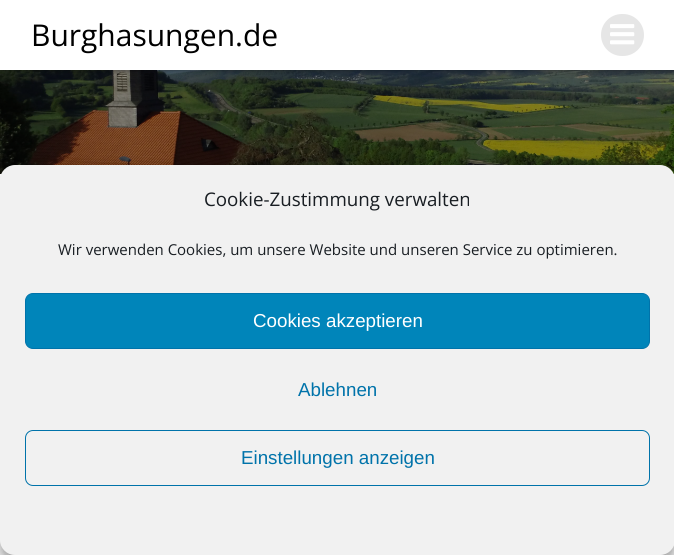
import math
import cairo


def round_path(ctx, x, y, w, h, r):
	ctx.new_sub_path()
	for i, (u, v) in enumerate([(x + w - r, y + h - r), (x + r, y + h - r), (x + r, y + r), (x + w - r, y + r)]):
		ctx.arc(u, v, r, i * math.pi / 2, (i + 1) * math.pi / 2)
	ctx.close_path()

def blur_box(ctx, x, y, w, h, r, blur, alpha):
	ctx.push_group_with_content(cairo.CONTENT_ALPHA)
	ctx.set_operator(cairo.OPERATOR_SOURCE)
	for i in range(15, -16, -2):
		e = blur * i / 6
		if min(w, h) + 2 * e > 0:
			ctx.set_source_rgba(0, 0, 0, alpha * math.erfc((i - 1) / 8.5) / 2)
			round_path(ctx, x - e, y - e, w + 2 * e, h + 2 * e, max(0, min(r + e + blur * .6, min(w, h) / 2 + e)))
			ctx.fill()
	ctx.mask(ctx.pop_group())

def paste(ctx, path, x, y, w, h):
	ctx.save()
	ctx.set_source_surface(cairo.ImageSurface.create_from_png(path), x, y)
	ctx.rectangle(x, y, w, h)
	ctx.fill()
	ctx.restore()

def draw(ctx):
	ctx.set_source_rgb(1, 1, 1)
	ctx.paint()
	paste(ctx, 'media/2.png', 0, 70, 674, 104)
	ctx.set_source_rgb(0, 0, 0)
	blur_box(ctx, 0, 0, 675, 70, 0, 2.5, 0.5)
	ctx.set_source_rgb(1, 1, 1)
	ctx.rectangle(0, 0, 674, 70)
	ctx.fill()
	ctx.select_font_face('Open Sans')
	ctx.set_font_size(30)
	ctx.set_source_rgb(0, 0, 0)
	ctx.move_to(31, 46)
	ctx.show_text('Burghasungen.de')
	ctx.set_source_rgb(0.902, 0.902, 0.902)
	round_path(ctx, 601, 14, 43, 42, 21)
	ctx.fill()
	paste(ctx, 'media/1.png', 610, 24, 25, 21)
	ctx.set_source_rgb(0, 0, 0)
	blur_box(ctx, 0, 173, 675, 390, 15, 4, 0.23)
	blur_box(ctx, 0, 178, 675, 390, 15, 12.5, 0.19)
	ctx.set_source_rgb(0.945, 0.945, 0.945)
	round_path(ctx, 0, 165, 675, 390, 15)
	ctx.fill()
	ctx.set_font_size(18.75)
	ctx.set_source_rgb(0.098, 0.118, 0.137)
	ctx.move_to(204, 206)
	ctx.show_text('Cookie-Zustimmung verwalten')
	ctx.set_font_size(15)
	ctx.move_to(58, 255)
	ctx.show_text('Wir verwenden Cookies, um unsere Website und unseren Service zu optimieren.')
	ctx.set_source_rgb(0, 0.522, 0.729)
	round_path(ctx, 25.5, 293.5, 624, 55, 7.5)
	ctx.fill_preserve()
	ctx.set_source_rgb(0, 0.451, 0.667)
	ctx.set_line_width(1)
	ctx.stroke()
	ctx.select_font_face('Liberation Sans')
	ctx.set_font_size(18.75)
	ctx.set_source_rgb(1, 1, 1)
	ctx.move_to(253, 327)
	ctx.show_text('Cookies akzeptieren')
	ctx.set_source_rgb(0, 0.451, 0.667)
	ctx.move_to(298, 396)
	ctx.show_text('Ablehnen')
	round_path(ctx, 25.5, 430.5, 624, 55, 7.5)
	ctx.stroke()
	ctx.move_to(241, 464)
	ctx.show_text('Einstellungen anzeigen')


surface = cairo.ImageSurface(cairo.FORMAT_RGB24, 674, 555)
ctx = cairo.Context(surface)
options = cairo.FontOptions()
options.set_hint_metrics(cairo.HINT_METRICS_OFF)
options.set_hint_style(cairo.HINT_STYLE_NONE)
ctx.set_font_options(options)
ctx.set_miter_limit(4)
draw(ctx)
surface.write_to_png('image.png')
